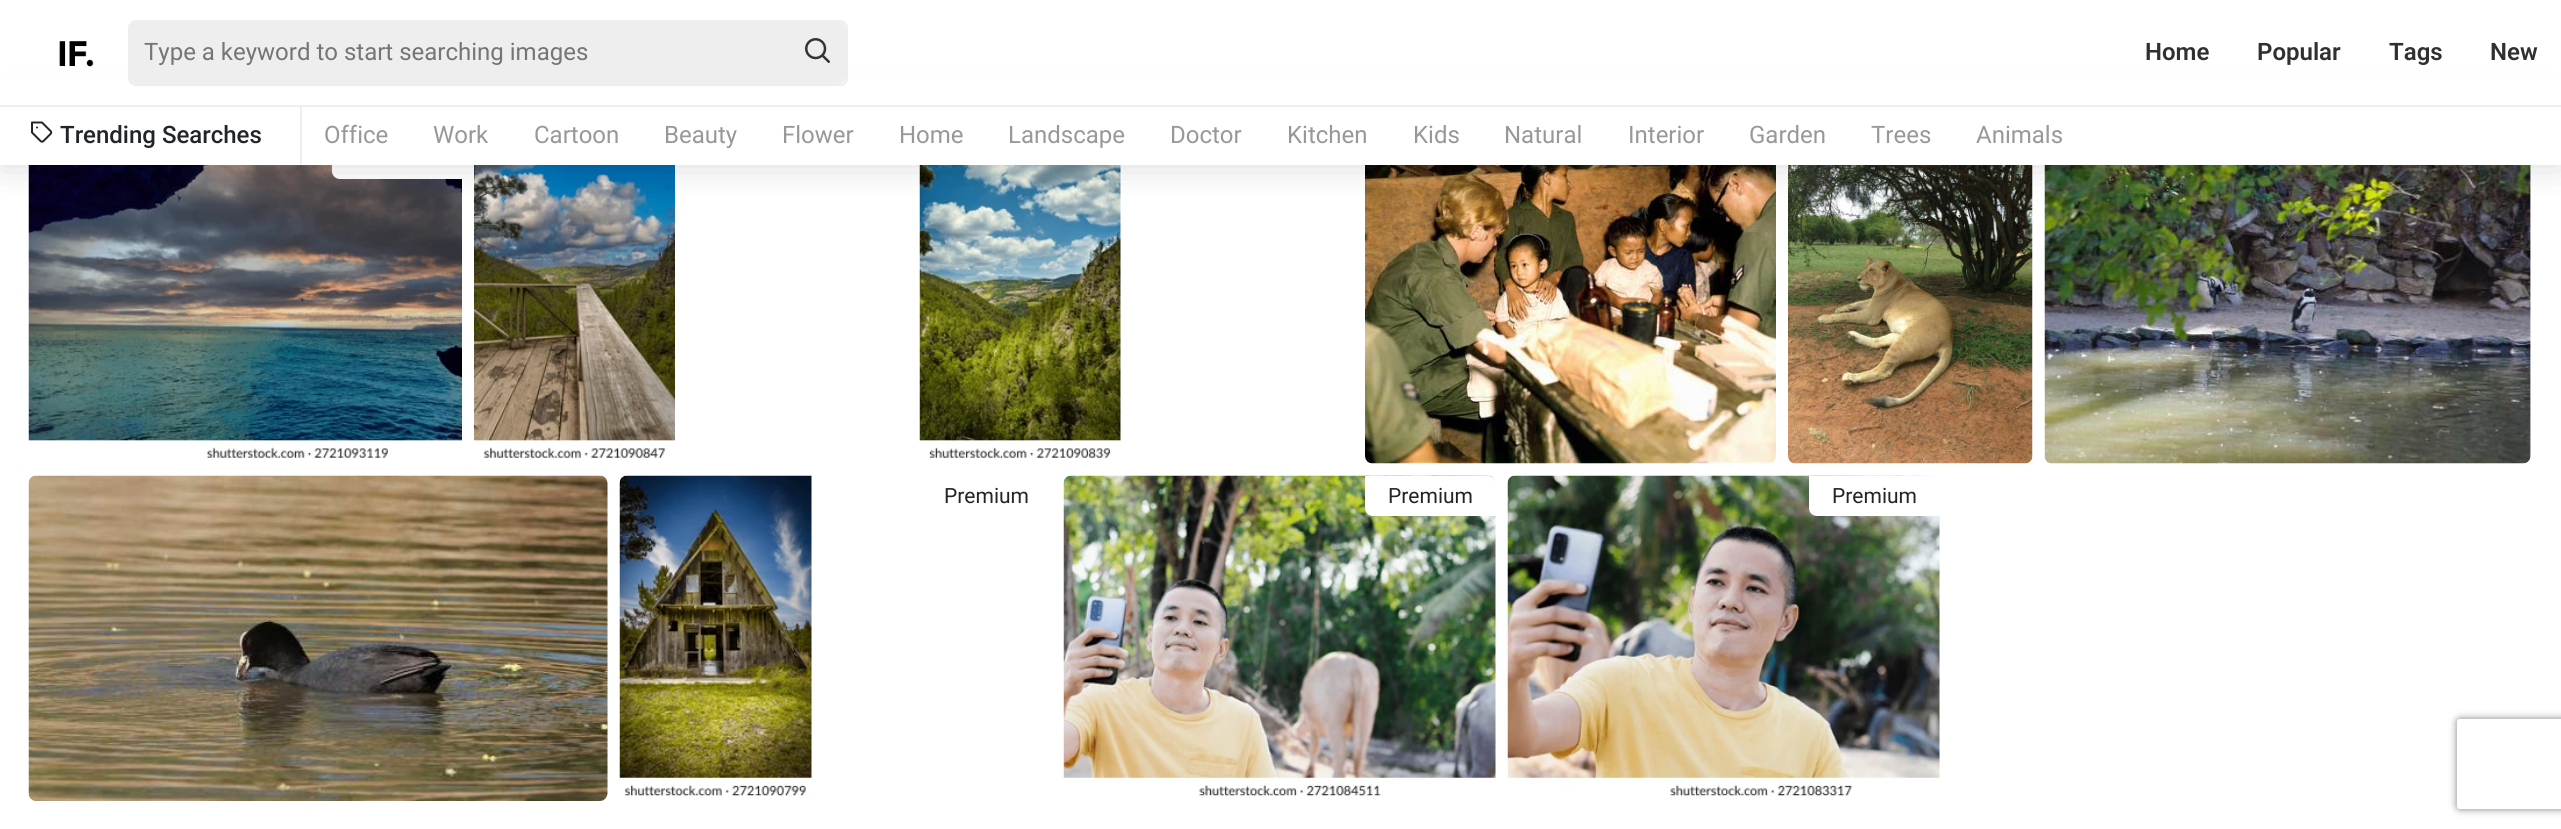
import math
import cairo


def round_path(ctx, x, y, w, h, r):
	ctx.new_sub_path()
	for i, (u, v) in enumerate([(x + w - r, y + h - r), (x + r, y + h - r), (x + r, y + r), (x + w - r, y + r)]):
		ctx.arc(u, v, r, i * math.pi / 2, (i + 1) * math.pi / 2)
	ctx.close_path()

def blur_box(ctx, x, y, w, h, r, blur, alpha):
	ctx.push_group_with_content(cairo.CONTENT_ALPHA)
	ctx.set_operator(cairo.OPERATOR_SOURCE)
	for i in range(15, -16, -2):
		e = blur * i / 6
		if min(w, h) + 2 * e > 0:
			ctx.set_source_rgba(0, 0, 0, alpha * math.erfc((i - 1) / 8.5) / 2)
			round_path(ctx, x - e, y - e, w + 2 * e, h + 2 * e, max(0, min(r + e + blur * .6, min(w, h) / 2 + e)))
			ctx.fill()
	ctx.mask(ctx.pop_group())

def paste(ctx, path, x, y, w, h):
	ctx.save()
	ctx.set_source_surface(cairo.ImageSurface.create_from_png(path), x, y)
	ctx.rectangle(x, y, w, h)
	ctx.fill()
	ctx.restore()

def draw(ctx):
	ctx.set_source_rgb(1, 1, 1)
	ctx.paint()
	paste(ctx, 'media/4.png', 28, 165, 434, 294)
	ctx.set_source_rgb(1, 1, 1)
	ctx.new_path()
	ctx.move_to(332, 138)
	ctx.line_to(454, 138)
	ctx.curve_to(458.5, 138, 462, 141.5, 462, 146)
	ctx.line_to(462, 179)
	ctx.line_to(340, 179)
	ctx.curve_to(335.5, 179, 332, 175.5, 332, 171)
	ctx.close_path()
	ctx.fill()
	paste(ctx, 'media/5.png', 474, 165, 201, 294)
	paste(ctx, 'media/6.png', 919, 165, 202, 294)
	paste(ctx, 'media/7.png', 1365, 165, 411, 299)
	paste(ctx, 'media/8.png', 1788, 165, 245, 299)
	paste(ctx, 'media/9.png', 2044, 165, 487, 299)
	ctx.set_source_rgb(0, 0, 0)
	blur_box(ctx, 0, 105, 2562, 60, 0, 19, 0.15)
	ctx.set_source_rgb(1, 1, 1)
	ctx.rectangle(0, 76, 2561, 29)
	ctx.rectangle(0, 107, 2561, 58)
	ctx.fill()
	ctx.set_source_rgb(0.933, 0.933, 0.933)
	ctx.rectangle(300, 105, 2, 60)
	ctx.rectangle(0, 105, 2561, 2)
	ctx.fill()
	paste(ctx, 'media/1.png', 59, 41, 35, 26)
	round_path(ctx, 129, 21, 718, 64, 7)
	ctx.stroke()
	round_path(ctx, 129, 21, 717, 63, 8)
	ctx.fill()
	ctx.select_font_face('Roboto')
	ctx.set_font_size(24)
	ctx.set_source_rgb(0.459, 0.459, 0.459)
	ctx.move_to(144, 60)
	ctx.show_text('Type a keyword to start searching images')
	paste(ctx, 'media/2.png', 805, 38, 25, 25)
	ctx.select_font_face('Roboto SemiBold')
	ctx.set_source_rgb(0.188, 0.188, 0.188)
	for x, y, s in [
		(2145, 60, 'Home'),
		(2257, 60, 'Popular'),
		(2389, 60, 'Tags'),
		(2490, 60, 'New'),
	]:
		ctx.move_to(x, y)
		ctx.show_text(s)
	paste(ctx, 'media/3.png', 31, 121, 22, 22)
	ctx.select_font_face('Roboto Medium')
	ctx.set_source_rgb(0.129, 0.145, 0.161)
	ctx.move_to(60, 143)
	ctx.show_text('Trending Searches')
	ctx.select_font_face('Roboto')
	ctx.set_source_rgb(0.596, 0.596, 0.596)
	for x, y, s in [
		(324, 143, 'Office'),
		(433, 143, 'Work'),
		(534, 143, 'Cartoon'),
		(664, 143, 'Beauty'),
		(782, 143, 'Flower'),
		(899, 143, 'Home'),
		(1008, 143, 'Landscape'),
		(1170, 143, 'Doctor'),
		(1287, 143, 'Kitchen'),
		(1413, 143, 'Kids'),
		(1504, 143, 'Natural'),
		(1628, 143, 'Interior'),
		(1749, 143, 'Garden'),
		(1871, 143, 'Trees'),
		(1976, 143, 'Animals'),
	]:
		ctx.move_to(x, y)
		ctx.show_text(s)
	paste(ctx, 'media/10.png', 28, 475, 580, 326)
	paste(ctx, 'media/11.png', 619, 475, 193, 322)
	ctx.set_font_size(21)
	ctx.set_source_rgb(0.129, 0.145, 0.161)
	ctx.move_to(944, 503)
	ctx.show_text('Premium')
	paste(ctx, 'media/12.png', 1063, 475, 433, 322)
	ctx.set_source_rgb(1, 1, 1)
	ctx.new_path()
	ctx.move_to(1365, 476)
	ctx.line_to(1488, 476)
	ctx.curve_to(1492.5, 476, 1496, 479.5, 1496, 484)
	ctx.line_to(1496, 516)
	ctx.line_to(1373, 516)
	ctx.curve_to(1368.5, 516, 1365, 512.5, 1365, 508)
	ctx.close_path()
	ctx.fill()
	ctx.set_source_rgb(0.129, 0.145, 0.161)
	ctx.move_to(1388, 503)
	ctx.show_text('Premium')
	paste(ctx, 'media/13.png', 1507, 475, 433, 322)
	ctx.set_source_rgb(1, 1, 1)
	ctx.new_path()
	ctx.move_to(1809, 476)
	ctx.line_to(1932, 476)
	ctx.curve_to(1936.5, 476, 1940, 479.5, 1940, 484)
	ctx.line_to(1940, 516)
	ctx.line_to(1817, 516)
	ctx.curve_to(1812.5, 516, 1809, 512.5, 1809, 508)
	ctx.close_path()
	ctx.fill()
	ctx.set_source_rgb(0.129, 0.145, 0.161)
	ctx.move_to(1832, 503)
	ctx.show_text('Premium')
	ctx.save()
	ctx.set_fill_rule(cairo.FILL_RULE_EVEN_ODD)
	ctx.new_path()
	ctx.move_to(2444, 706)
	ctx.line_to(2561, 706)
	ctx.line_to(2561, 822)
	ctx.line_to(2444, 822)
	ctx.close_path()
	ctx.move_to(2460, 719)
	ctx.line_to(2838, 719)
	ctx.curve_to(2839.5, 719, 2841, 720.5, 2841, 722)
	ctx.line_to(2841, 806)
	ctx.curve_to(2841, 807.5, 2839.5, 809, 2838, 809)
	ctx.line_to(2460, 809)
	ctx.curve_to(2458.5, 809, 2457, 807.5, 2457, 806)
	ctx.line_to(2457, 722)
	ctx.curve_to(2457, 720.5, 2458.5, 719, 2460, 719)
	ctx.close_path()
	ctx.clip()
	ctx.set_source_rgb(0.502, 0.502, 0.502)
	blur_box(ctx, 2457, 719, 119, 90, 3, 4, 1)
	ctx.restore()


surface = cairo.ImageSurface(cairo.FORMAT_RGB24, 2561, 829)
ctx = cairo.Context(surface)
options = cairo.FontOptions()
options.set_hint_metrics(cairo.HINT_METRICS_OFF)
options.set_hint_style(cairo.HINT_STYLE_NONE)
ctx.set_font_options(options)
ctx.set_miter_limit(4)
draw(ctx)
surface.write_to_png('image.png')
